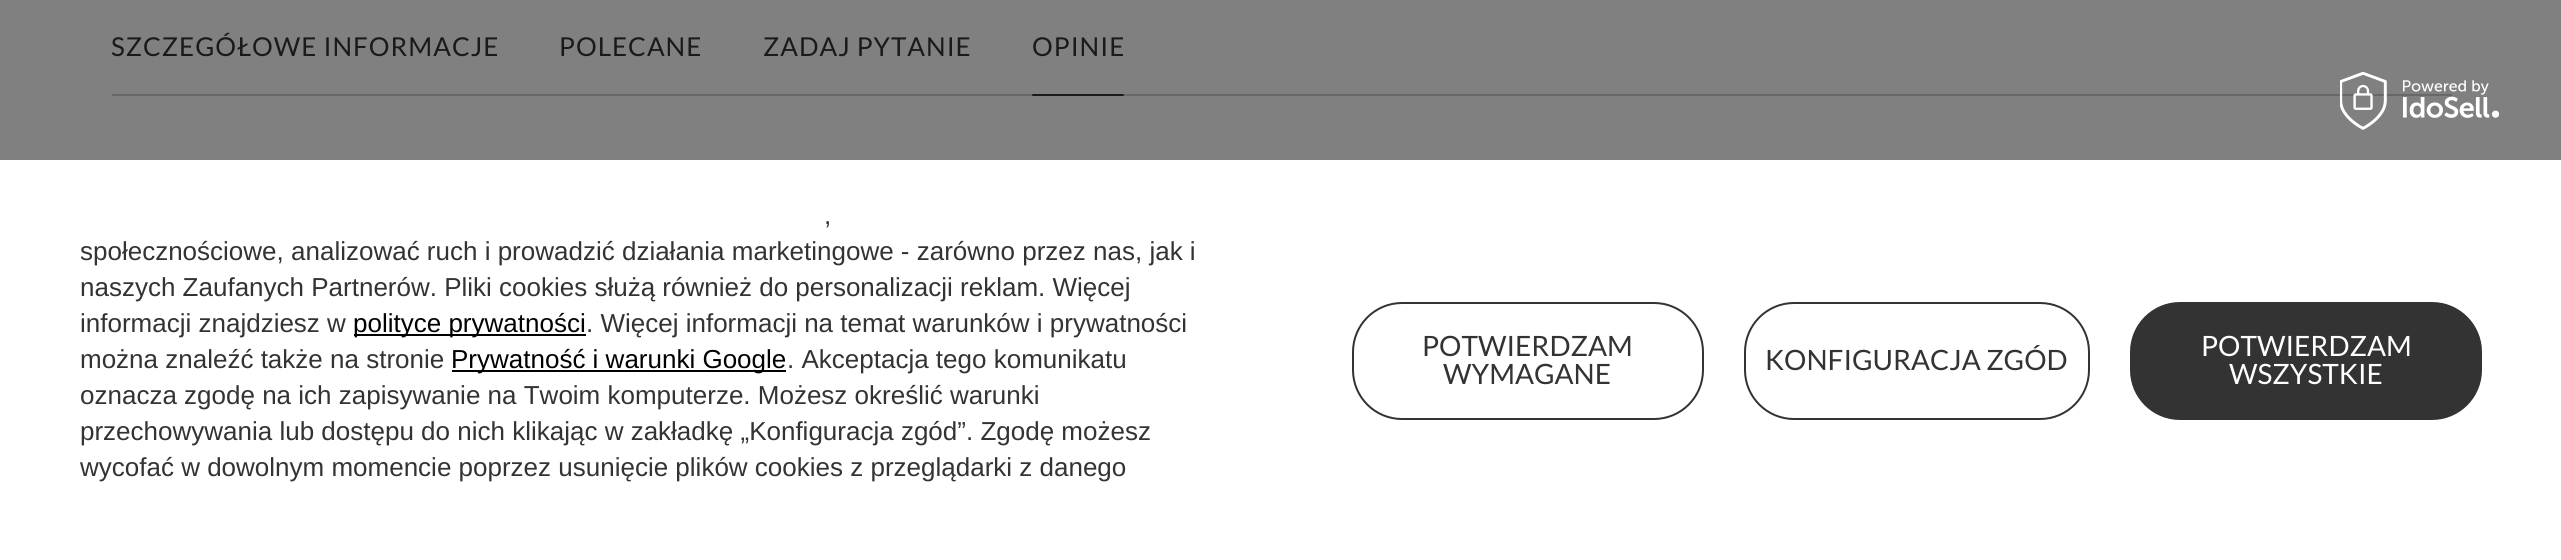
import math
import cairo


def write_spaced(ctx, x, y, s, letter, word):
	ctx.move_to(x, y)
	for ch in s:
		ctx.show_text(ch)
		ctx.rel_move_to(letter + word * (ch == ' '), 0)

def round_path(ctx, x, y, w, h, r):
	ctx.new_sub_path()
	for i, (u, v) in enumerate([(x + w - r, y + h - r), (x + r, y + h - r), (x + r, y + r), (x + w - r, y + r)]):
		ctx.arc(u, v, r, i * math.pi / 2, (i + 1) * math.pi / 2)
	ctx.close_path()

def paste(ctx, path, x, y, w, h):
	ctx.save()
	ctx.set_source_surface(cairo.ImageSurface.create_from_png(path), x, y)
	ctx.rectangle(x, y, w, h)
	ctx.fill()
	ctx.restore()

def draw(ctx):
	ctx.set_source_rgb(0.502, 0.502, 0.502)
	ctx.paint()
	ctx.set_source_rgb(0.408, 0.408, 0.408)
	ctx.rectangle(112, 94, 2340, 2)
	ctx.fill()
	ctx.select_font_face('Lato')
	ctx.set_font_size(26)
	ctx.set_source_rgb(0.102, 0.102, 0.102)
	for x, y, s in [
		(111, 56, 'SZCZEGÓŁOWE INFORMACJE'),
		(559, 56, 'POLECANE'),
		(763, 56, 'ZADAJ PYTANIE'),
		(1032, 56, 'OPINIE'),
	]:
		write_spaced(ctx, x, y, s, 1, 0)
	round_path(ctx, 1032, 94, 92, 2, 1)
	ctx.fill()
	ctx.set_source_rgb(1, 1, 1)
	ctx.rectangle(0, 160, 2561, 400)
	ctx.fill()
	paste(ctx, 'media/1.png', 2340, 72, 159, 58)
	ctx.select_font_face('Liberation Sans')
	ctx.set_source_rgb(0.2, 0.2, 0.2)
	for x, y, s in [
		(824, 224, ','),
		(80, 260, 'społecznościowe, analizować ruch i prowadzić działania marketingowe - zarówno przez nas, jak i'),
		(80, 296, 'naszych Zaufanych Partnerów. Pliki cookies służą również do personalizacji reklam. Więcej'),
		(80, 332, 'informacji znajdziesz w'),
	]:
		ctx.move_to(x, y)
		ctx.show_text(s)
	ctx.set_source_rgb(0, 0, 0)
	ctx.rectangle(354, 334, 232, 2)
	ctx.fill()
	ctx.move_to(353, 332)
	ctx.show_text('polityce prywatności')
	ctx.set_source_rgb(0.2, 0.2, 0.2)
	ctx.move_to(586, 332)
	ctx.show_text('. Więcej informacji na temat warunków i prywatności')
	ctx.move_to(80, 368)
	ctx.show_text('można znaleźć także na stronie')
	ctx.set_source_rgb(0, 0, 0)
	ctx.rectangle(452, 370, 334, 2)
	ctx.fill()
	ctx.move_to(451, 368)
	ctx.show_text('Prywatność i warunki Google')
	ctx.set_source_rgb(0.2, 0.2, 0.2)
	for x, y, s in [
		(787, 368, '. Akceptacja tego komunikatu'),
		(80, 404, 'oznacza zgodę na ich zapisywanie na Twoim komputerze. Możesz określić warunki'),
		(80, 440, 'przechowywania lub dostępu do nich klikając w zakładkę „Konfiguracja zgód”. Zgodę możesz'),
		(80, 476, 'wycofać w dowolnym momencie poprzez usunięcie plików cookies z przeglądarki z danego'),
	]:
		ctx.move_to(x, y)
		ctx.show_text(s)
	round_path(ctx, 1353, 303, 350, 116, 49)
	ctx.stroke()
	ctx.select_font_face('Lato')
	ctx.set_font_size(28)
	ctx.move_to(1422, 356)
	ctx.show_text('POTWIERDZAM')
	ctx.move_to(1443, 384)
	ctx.show_text('WYMAGANE')
	round_path(ctx, 1745, 303, 344, 116, 49)
	ctx.stroke()
	ctx.move_to(1765, 370)
	ctx.show_text('KONFIGURACJA ZGÓD')
	round_path(ctx, 2131, 303, 350, 116, 49)
	ctx.fill_preserve()
	ctx.stroke()
	ctx.set_source_rgb(1, 1, 1)
	ctx.move_to(2201, 356)
	ctx.show_text('POTWIERDZAM')
	ctx.move_to(2229, 384)
	ctx.show_text('WSZYSTKIE')


surface = cairo.ImageSurface(cairo.FORMAT_RGB24, 2561, 560)
ctx = cairo.Context(surface)
options = cairo.FontOptions()
options.set_hint_metrics(cairo.HINT_METRICS_OFF)
options.set_hint_style(cairo.HINT_STYLE_NONE)
ctx.set_font_options(options)
ctx.set_miter_limit(4)
draw(ctx)
surface.write_to_png('image.png')
